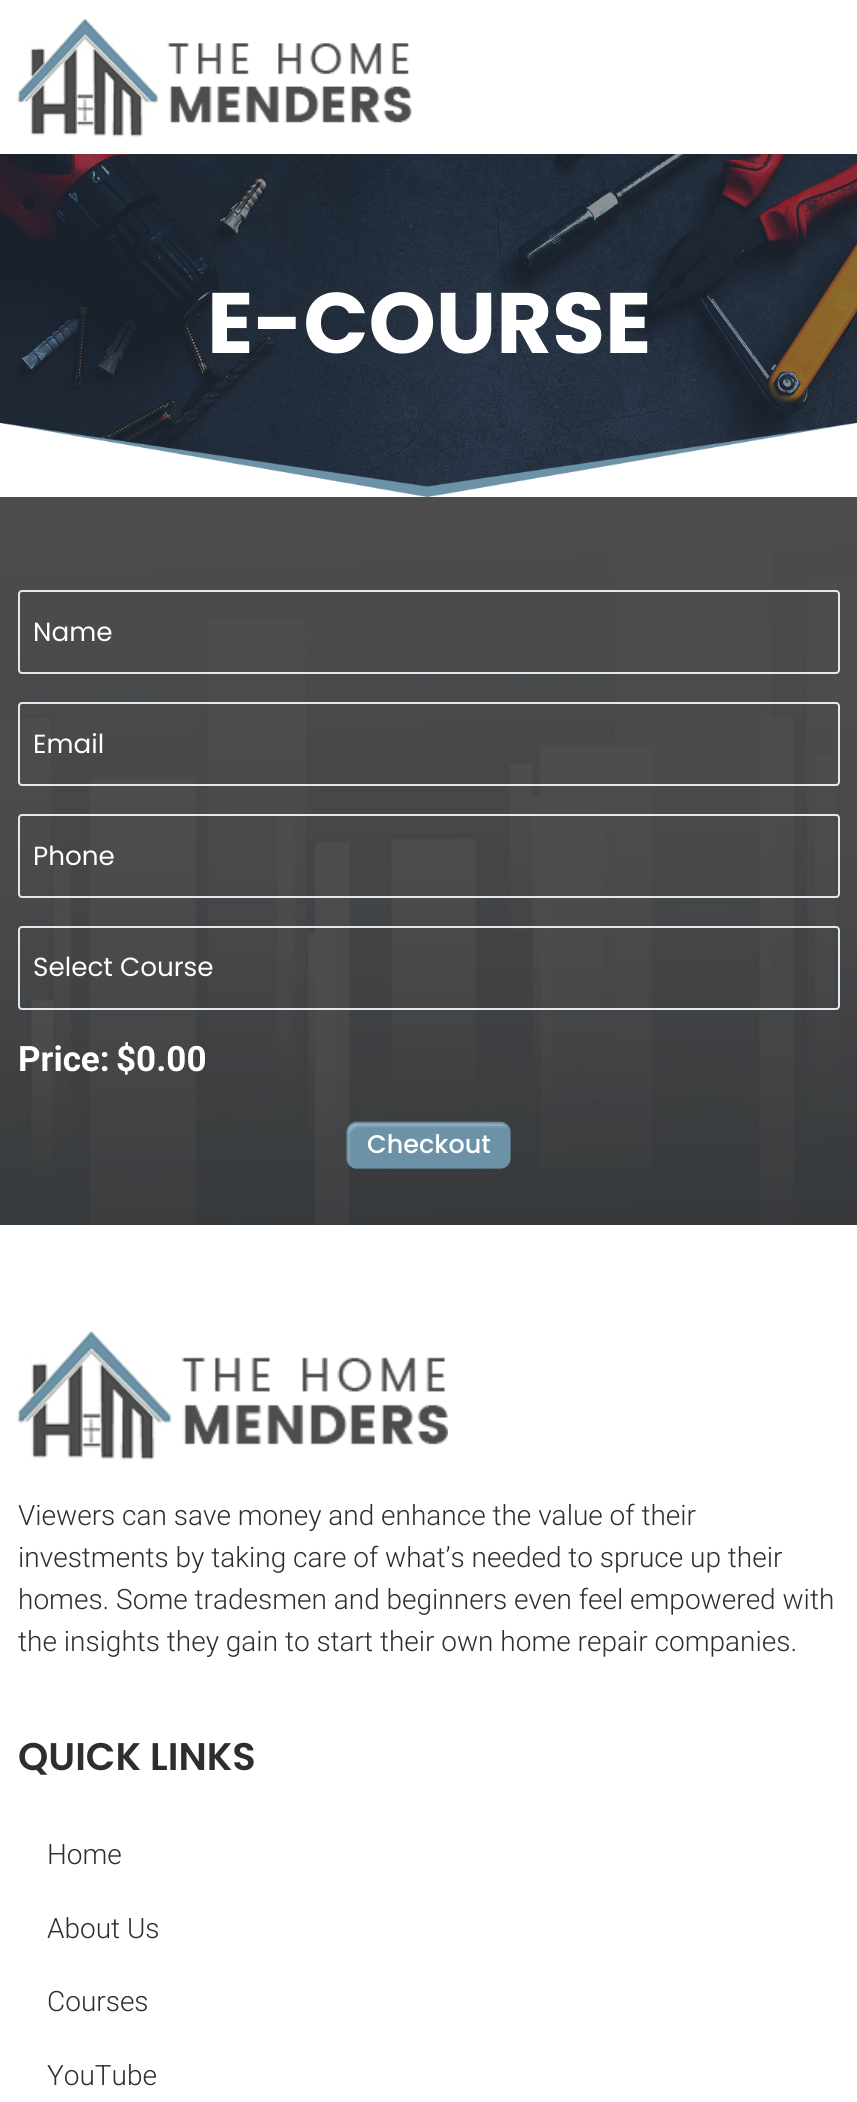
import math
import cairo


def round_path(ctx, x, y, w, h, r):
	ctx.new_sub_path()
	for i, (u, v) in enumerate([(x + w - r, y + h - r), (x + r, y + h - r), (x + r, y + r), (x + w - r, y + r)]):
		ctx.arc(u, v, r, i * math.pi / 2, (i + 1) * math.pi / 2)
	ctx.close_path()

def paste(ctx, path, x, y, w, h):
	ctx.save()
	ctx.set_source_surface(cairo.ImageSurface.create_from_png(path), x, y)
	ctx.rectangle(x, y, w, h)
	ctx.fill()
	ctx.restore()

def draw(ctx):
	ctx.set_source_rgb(1, 1, 1)
	ctx.paint()
	paste(ctx, 'media/1.png', 17, 18, 395, 119)
	paste(ctx, 'media/2.png', 0, 154, 857, 343)
	ctx.select_font_face('Poppins', cairo.FONT_SLANT_NORMAL, cairo.FONT_WEIGHT_BOLD)
	ctx.set_font_size(85.75)
	ctx.set_source_rgb(1, 1, 1)
	ctx.move_to(207, 353)
	ctx.show_text('E-COURSE')
	paste(ctx, 'media/3.png', 0, 497, 857, 728)
	round_path(ctx, 19, 591, 820, 82, 3)
	ctx.set_source_rgb(0.886, 0.91, 0.941)
	ctx.stroke()
	ctx.select_font_face('Poppins')
	ctx.set_font_size(26.25)
	ctx.set_source_rgb(1, 1, 1)
	ctx.move_to(33, 641)
	ctx.show_text('Name')
	round_path(ctx, 19, 703, 820, 82, 3)
	ctx.set_source_rgb(0.886, 0.91, 0.941)
	ctx.stroke()
	ctx.set_source_rgb(1, 1, 1)
	ctx.move_to(33, 753)
	ctx.show_text('Email')
	round_path(ctx, 19, 815, 820, 82, 3)
	ctx.set_source_rgb(0.886, 0.91, 0.941)
	ctx.stroke()
	ctx.set_source_rgb(1, 1, 1)
	ctx.move_to(33, 865)
	ctx.show_text('Phone')
	round_path(ctx, 19, 927, 820, 82, 3)
	ctx.set_source_rgb(0.886, 0.91, 0.941)
	ctx.stroke()
	ctx.set_source_rgb(1, 1, 1)
	ctx.move_to(33, 976)
	ctx.show_text('Select Course')
	ctx.select_font_face('Roboto', cairo.FONT_SLANT_NORMAL, cairo.FONT_WEIGHT_BOLD)
	ctx.set_font_size(35)
	ctx.move_to(18, 1071)
	ctx.show_text('Price:')
	ctx.move_to(116, 1071)
	ctx.show_text('$0.00')
	paste(ctx, 'media/4.png', 346, 1121, 165, 48)
	ctx.select_font_face('Poppins Medium')
	ctx.set_font_size(25.5)
	ctx.move_to(367, 1153)
	ctx.show_text('Checkout')
	paste(ctx, 'media/5.png', 17, 1331, 431, 129)
	ctx.select_font_face('Roboto Light')
	ctx.set_font_size(28)
	ctx.set_source_rgb(0.18, 0.18, 0.18)
	for x, y, s in [
		(18, 1525, 'Viewers can save money and enhance the value of their'),
		(18, 1567, 'investments by taking care of what’s needed to spruce up their'),
		(18, 1609, 'homes. Some tradesmen and beginners even feel empowered with'),
		(18, 1651, 'the insights they gain to start their own home repair companies.'),
	]:
		ctx.move_to(x, y)
		ctx.show_text(s)
	ctx.select_font_face('Poppins SemiBold')
	ctx.set_font_size(38.5)
	ctx.move_to(18, 1770)
	ctx.show_text('QUICK LINKS')
	ctx.select_font_face('Roboto Light')
	ctx.set_font_size(28)
	for x, y, s in [
		(47, 1864, 'Home'),
		(47, 1938, 'About Us'),
		(47, 2011, 'Courses'),
		(47, 2085, 'YouTube'),
	]:
		ctx.move_to(x, y)
		ctx.show_text(s)


surface = cairo.ImageSurface(cairo.FORMAT_RGB24, 857, 2102)
ctx = cairo.Context(surface)
options = cairo.FontOptions()
options.set_hint_metrics(cairo.HINT_METRICS_OFF)
options.set_hint_style(cairo.HINT_STYLE_NONE)
ctx.set_font_options(options)
ctx.set_miter_limit(4)
draw(ctx)
surface.write_to_png('image.png')
